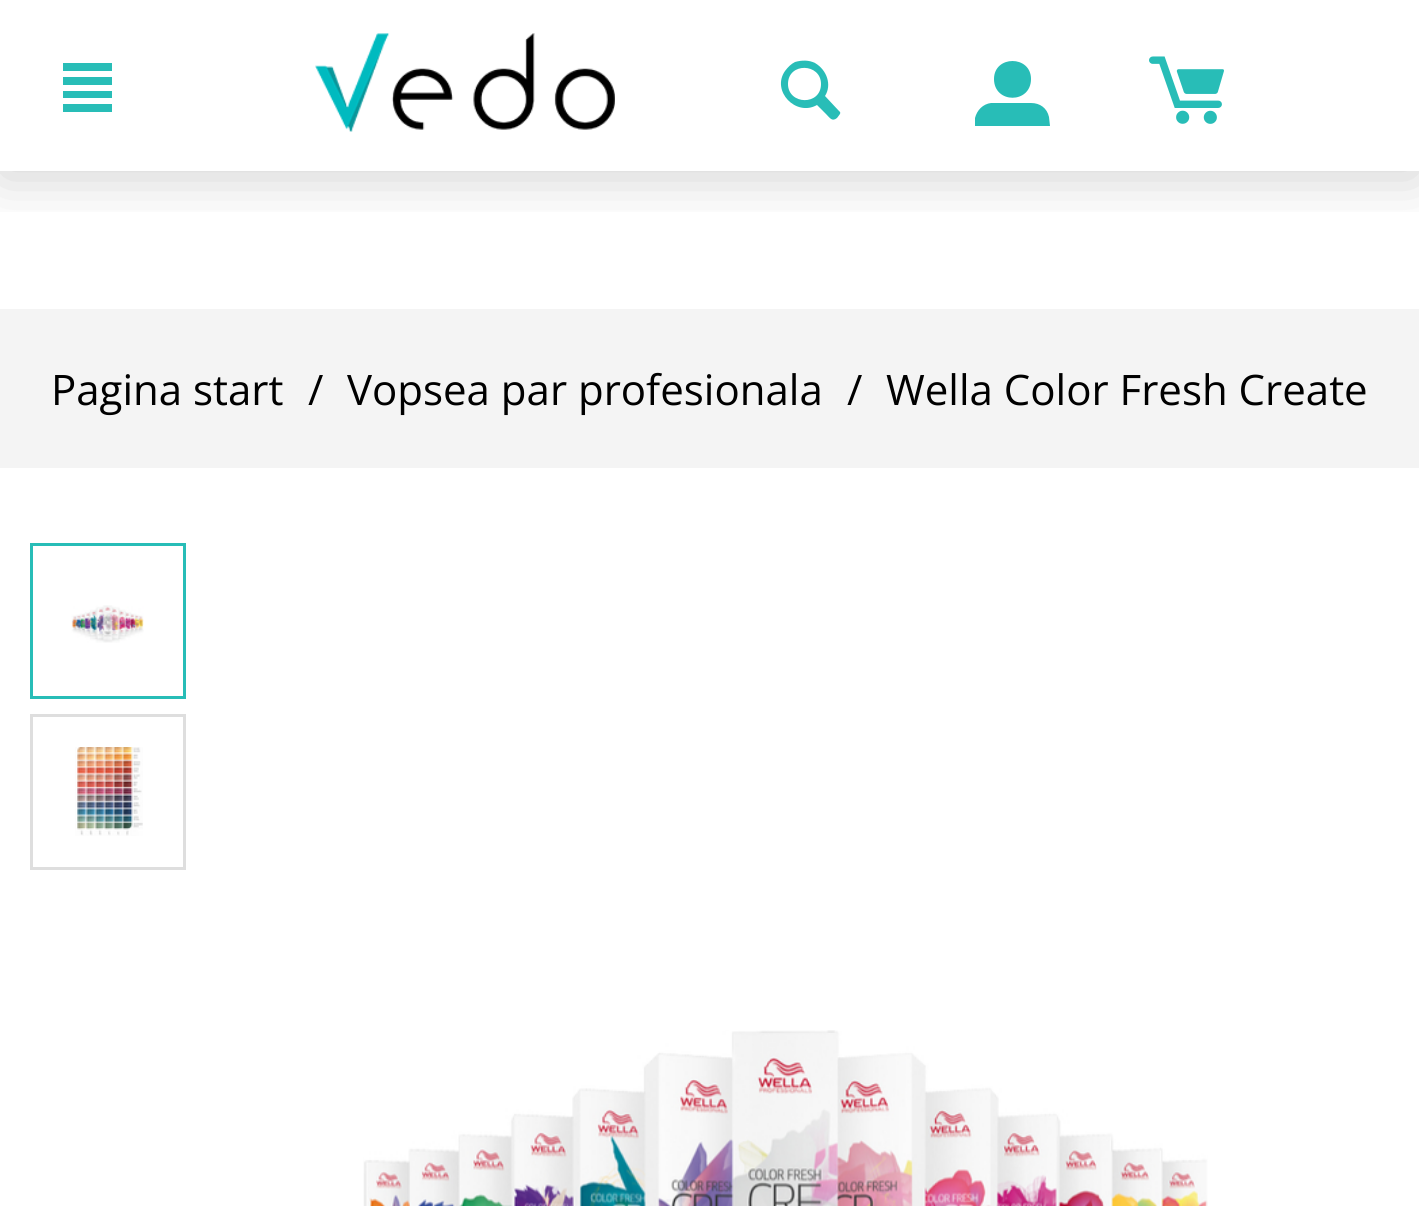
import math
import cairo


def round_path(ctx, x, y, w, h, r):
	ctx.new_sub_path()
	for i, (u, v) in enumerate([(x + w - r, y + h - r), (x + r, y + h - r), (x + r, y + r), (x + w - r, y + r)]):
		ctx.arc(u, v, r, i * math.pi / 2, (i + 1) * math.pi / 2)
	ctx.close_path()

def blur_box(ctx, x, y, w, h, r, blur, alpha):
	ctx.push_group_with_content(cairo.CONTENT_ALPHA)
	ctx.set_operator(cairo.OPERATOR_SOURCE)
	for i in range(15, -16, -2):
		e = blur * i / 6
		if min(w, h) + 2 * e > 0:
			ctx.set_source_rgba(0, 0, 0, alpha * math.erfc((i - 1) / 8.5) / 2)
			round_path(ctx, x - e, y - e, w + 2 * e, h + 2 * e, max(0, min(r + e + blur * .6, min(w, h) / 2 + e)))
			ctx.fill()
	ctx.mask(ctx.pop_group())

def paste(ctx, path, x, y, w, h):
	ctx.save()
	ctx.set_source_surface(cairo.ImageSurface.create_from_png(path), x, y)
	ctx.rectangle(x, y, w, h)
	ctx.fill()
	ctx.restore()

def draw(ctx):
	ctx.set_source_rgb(1, 1, 1)
	ctx.paint()
	ctx.save()
	ctx.rectangle(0, 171, 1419, 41)
	ctx.clip()
	ctx.set_source_rgb(0, 0, 0)
	blur_box(ctx, 0, 6, 1419, 171, 0, 28.5, 0.18)
	ctx.restore()
	ctx.set_source_rgb(0.157, 0.741, 0.718)
	ctx.new_path()
	ctx.move_to(112, 104)
	ctx.line_to(112, 112)
	ctx.line_to(63, 112)
	ctx.line_to(63, 104)
	ctx.close_path()
	ctx.move_to(112, 91)
	ctx.line_to(112, 98)
	ctx.line_to(63, 98)
	ctx.line_to(63, 91)
	ctx.close_path()
	ctx.move_to(112, 77)
	ctx.line_to(112, 85)
	ctx.line_to(63, 85)
	ctx.line_to(63, 77)
	ctx.close_path()
	ctx.move_to(112, 63)
	ctx.line_to(112, 71)
	ctx.line_to(63, 71)
	ctx.line_to(63, 63)
	ctx.close_path()
	ctx.fill()
	paste(ctx, 'media/1.png', 315, 33, 300, 99)
	ctx.new_path()
	ctx.move_to(839, 111)
	ctx.curve_to(842, 113, 839, 115, 837, 118)
	ctx.curve_to(832, 122, 830, 118, 826, 114)
	ctx.line_to(817, 105)
	ctx.curve_to(796, 117, 771, 91, 785, 71)
	ctx.curve_to(788, 67, 791, 64, 795, 62)
	ctx.curve_to(802, 60, 809, 60, 815, 63)
	ctx.curve_to(827, 70, 832, 85, 825, 96)
	ctx.close_path()
	ctx.move_to(788, 84)
	ctx.curve_to(788, 105, 821, 106, 821, 84)
	ctx.curve_to(821, 63, 788, 62, 788, 84)
	ctx.close_path()
	ctx.fill()
	ctx.new_path()
	ctx.move_to(994, 79)
	ctx.curve_to(994, 55, 1031, 55, 1031, 79)
	ctx.curve_to(1031, 104, 994, 104, 994, 79)
	ctx.close_path()
	ctx.move_to(1031, 103)
	ctx.line_to(991, 103)
	ctx.curve_to(983, 104, 977, 110, 975, 118)
	ctx.line_to(975, 126)
	ctx.line_to(1050, 126)
	ctx.line_to(1049, 117)
	ctx.curve_to(1047, 108, 1040, 103, 1031, 103)
	ctx.close_path()
	ctx.fill()
	paste(ctx, 'media/2.png', 1149, 56, 75, 68)
	ctx.set_source_rgb(0.957, 0.957, 0.957)
	ctx.rectangle(0, 309, 1419, 159)
	ctx.fill()
	ctx.select_font_face('Open Sans')
	ctx.set_font_size(42)
	ctx.set_source_rgb(0, 0, 0)
	for x, y, s in [
		(51, 405, 'Pagina start'),
		(308, 405, '/'),
		(347, 405, 'Vopsea par profesionala'),
		(847, 405, '/'),
		(886, 405, 'Wella Color Fresh Create'),
	]:
		ctx.move_to(x, y)
		ctx.show_text(s)
	ctx.rectangle(31.5, 544.5, 153, 153)
	ctx.set_source_rgb(0.157, 0.741, 0.718)
	ctx.set_line_width(3)
	ctx.stroke()
	paste(ctx, 'media/3.png', 71, 605, 73, 38)
	ctx.rectangle(31.5, 715.5, 153, 153)
	ctx.set_source_rgb(0.871, 0.871, 0.871)
	ctx.stroke()
	paste(ctx, 'media/4.png', 75, 747, 68, 89)
	paste(ctx, 'media/5.png', 363, 1030, 845, 176)


surface = cairo.ImageSurface(cairo.FORMAT_RGB24, 1419, 1206)
ctx = cairo.Context(surface)
options = cairo.FontOptions()
options.set_hint_metrics(cairo.HINT_METRICS_OFF)
options.set_hint_style(cairo.HINT_STYLE_NONE)
ctx.set_font_options(options)
ctx.set_miter_limit(4)
draw(ctx)
surface.write_to_png('image.png')
